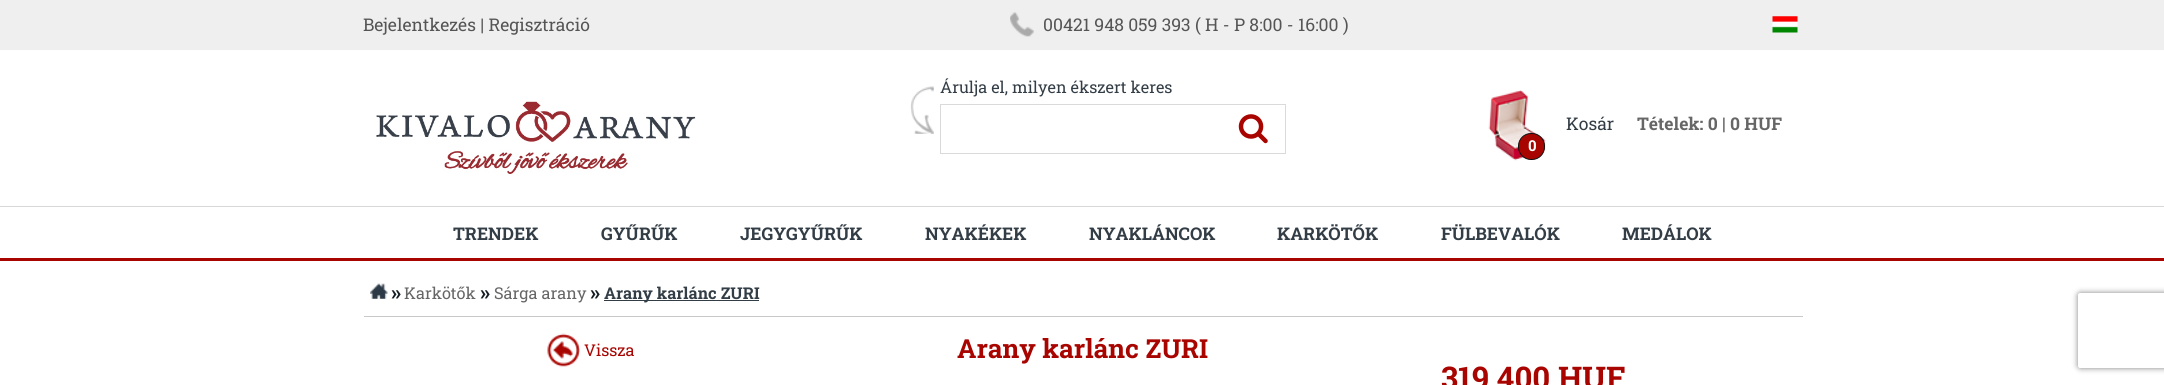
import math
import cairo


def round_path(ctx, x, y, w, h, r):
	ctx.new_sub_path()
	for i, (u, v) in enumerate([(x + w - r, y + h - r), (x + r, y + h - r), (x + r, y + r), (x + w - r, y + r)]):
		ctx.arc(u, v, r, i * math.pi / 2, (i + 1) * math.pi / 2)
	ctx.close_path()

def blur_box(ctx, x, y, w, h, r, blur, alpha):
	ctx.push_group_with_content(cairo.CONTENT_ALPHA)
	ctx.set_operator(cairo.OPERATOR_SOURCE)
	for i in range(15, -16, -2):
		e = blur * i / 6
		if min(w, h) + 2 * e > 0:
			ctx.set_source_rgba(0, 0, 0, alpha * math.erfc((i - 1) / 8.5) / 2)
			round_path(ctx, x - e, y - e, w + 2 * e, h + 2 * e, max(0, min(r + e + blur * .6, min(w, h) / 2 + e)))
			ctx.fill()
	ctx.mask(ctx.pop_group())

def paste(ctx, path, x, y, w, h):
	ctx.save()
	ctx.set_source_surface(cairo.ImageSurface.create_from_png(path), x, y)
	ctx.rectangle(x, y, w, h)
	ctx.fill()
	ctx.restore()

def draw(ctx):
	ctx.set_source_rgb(1, 1, 1)
	ctx.paint()
	ctx.set_source_rgb(0.937, 0.937, 0.937)
	ctx.rectangle(0, 0, 2164, 50)
	ctx.fill()
	ctx.select_font_face('Roboto Slab')
	ctx.set_font_size(17.5)
	ctx.set_source_rgb(0.333, 0.333, 0.333)
	ctx.move_to(363, 31)
	ctx.show_text('Bejelentkezés | Regisztráció')
	paste(ctx, 'media/1.png', 1010, 12, 24, 25)
	ctx.move_to(1043, 31)
	ctx.show_text('00421 948 059 393 ( H - P 8:00 - 16:00 )')
	paste(ctx, 'media/2.png', 1772, 16, 26, 17)
	paste(ctx, 'media/3.png', 910, 86, 24, 48)
	ctx.set_font_size(16.25)
	ctx.set_source_rgb(0.2, 0.239, 0.275)
	ctx.move_to(940, 93)
	ctx.show_text('Árulja el, milyen ékszert keres')
	ctx.rectangle(940.5, 104.5, 345, 49)
	ctx.set_source_rgb(0.859, 0.855, 0.855)
	ctx.set_line_width(1)
	ctx.stroke()
	paste(ctx, 'media/4.png', 1238, 114, 30, 30)
	paste(ctx, 'media/5.png', 376, 101, 320, 73)
	paste(ctx, 'media/6.png', 1488, 90, 58, 71)
	ctx.set_font_size(17.5)
	ctx.set_source_rgb(0.2, 0.239, 0.275)
	ctx.move_to(1566, 130)
	ctx.show_text('Kosár')
	ctx.select_font_face('Roboto Slab', cairo.FONT_SLANT_NORMAL, cairo.FONT_WEIGHT_BOLD)
	ctx.set_source_rgb(0.4, 0.4, 0.4)
	ctx.move_to(1637, 130)
	ctx.show_text('Tételek: 0 | 0 HUF')
	ctx.set_source_rgb(0.659, 0.016, 0)
	round_path(ctx, 1518.5, 133.5, 26, 26, 12.5)
	ctx.fill_preserve()
	ctx.set_source_rgb(0.067, 0.067, 0.067)
	ctx.stroke()
	ctx.set_font_size(15)
	ctx.set_source_rgb(1, 1, 1)
	ctx.move_to(1528, 151)
	ctx.show_text('0')
	ctx.set_source_rgb(0.847, 0.843, 0.843)
	ctx.rectangle(0, 206, 2164, 1)
	ctx.fill()
	ctx.set_source_rgb(0.659, 0.016, 0)
	ctx.rectangle(0, 258, 2164, 3)
	ctx.fill()
	ctx.set_font_size(17.5)
	ctx.set_source_rgb(0.2, 0.239, 0.275)
	for x, y, s in [
		(453, 240, 'TRENDEK'),
		(601, 240, 'GYŰRŰK'),
		(740, 240, 'JEGYGYŰRŰK'),
		(925, 240, 'NYAKÉKEK'),
		(1089, 240, 'NYAKLÁNCOK'),
		(1277, 240, 'KARKÖTŐK'),
		(1441, 240, 'FÜLBEVALÓK'),
		(1622, 240, 'MEDÁLOK'),
	]:
		ctx.move_to(x, y)
		ctx.show_text(s)
	ctx.set_source_rgb(0.788, 0.788, 0.788)
	ctx.rectangle(364, 316, 1439, 1)
	ctx.fill()
	paste(ctx, 'media/7.png', 370, 283, 18, 16)
	ctx.set_font_size(21)
	ctx.set_source_rgb(0.082, 0.11, 0.141)
	ctx.move_to(391, 300)
	ctx.show_text('»')
	ctx.select_font_face('Roboto Slab')
	ctx.set_font_size(16.25)
	ctx.set_source_rgb(0.4, 0.4, 0.4)
	ctx.move_to(404, 299)
	ctx.show_text('Karkötők')
	ctx.select_font_face('Roboto Slab', cairo.FONT_SLANT_NORMAL, cairo.FONT_WEIGHT_BOLD)
	ctx.set_font_size(21)
	ctx.set_source_rgb(0.082, 0.11, 0.141)
	ctx.move_to(480, 300)
	ctx.show_text('»')
	ctx.select_font_face('Roboto Slab')
	ctx.set_font_size(16.25)
	ctx.set_source_rgb(0.4, 0.4, 0.4)
	ctx.move_to(494, 299)
	ctx.show_text('Sárga arany')
	ctx.select_font_face('Roboto Slab', cairo.FONT_SLANT_NORMAL, cairo.FONT_WEIGHT_BOLD)
	ctx.set_font_size(21)
	ctx.set_source_rgb(0.082, 0.11, 0.141)
	ctx.move_to(590, 300)
	ctx.show_text('»')
	ctx.set_source_rgb(0.2, 0.239, 0.275)
	ctx.rectangle(604, 300, 155, 1)
	ctx.fill()
	ctx.set_font_size(16.25)
	ctx.move_to(604, 299)
	ctx.show_text('Arany karlánc ZURI')
	paste(ctx, 'media/8.png', 547, 333, 33, 34)
	ctx.select_font_face('Roboto Slab')
	ctx.set_source_rgb(0.659, 0.016, 0)
	ctx.move_to(584, 356)
	ctx.show_text('Vissza')
	ctx.select_font_face('Roboto Slab', cairo.FONT_SLANT_NORMAL, cairo.FONT_WEIGHT_BOLD)
	ctx.set_font_size(26.25)
	ctx.move_to(957, 358)
	ctx.show_text('Arany karlánc ZURI')
	ctx.set_font_size(31.25)
	ctx.move_to(1441, 389)
	ctx.show_text('319 400 HUF')
	ctx.save()
	ctx.set_fill_rule(cairo.FILL_RULE_EVEN_ODD)
	ctx.new_path()
	ctx.move_to(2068, 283)
	ctx.line_to(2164, 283)
	ctx.line_to(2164, 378)
	ctx.line_to(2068, 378)
	ctx.close_path()
	ctx.move_to(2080.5, 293)
	ctx.line_to(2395.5, 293)
	ctx.curve_to(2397, 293, 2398, 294, 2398, 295.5)
	ctx.line_to(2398, 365.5)
	ctx.curve_to(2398, 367, 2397, 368, 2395.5, 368)
	ctx.line_to(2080.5, 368)
	ctx.curve_to(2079, 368, 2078, 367, 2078, 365.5)
	ctx.line_to(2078, 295.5)
	ctx.curve_to(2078, 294, 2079, 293, 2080.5, 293)
	ctx.close_path()
	ctx.clip()
	ctx.set_source_rgb(0.502, 0.502, 0.502)
	blur_box(ctx, 2078, 293, 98, 75, 2.5, 3, 1)
	ctx.restore()


surface = cairo.ImageSurface(cairo.FORMAT_RGB24, 2164, 385)
ctx = cairo.Context(surface)
options = cairo.FontOptions()
options.set_hint_metrics(cairo.HINT_METRICS_OFF)
options.set_hint_style(cairo.HINT_STYLE_NONE)
ctx.set_font_options(options)
ctx.set_miter_limit(4)
draw(ctx)
surface.write_to_png('image.png')
